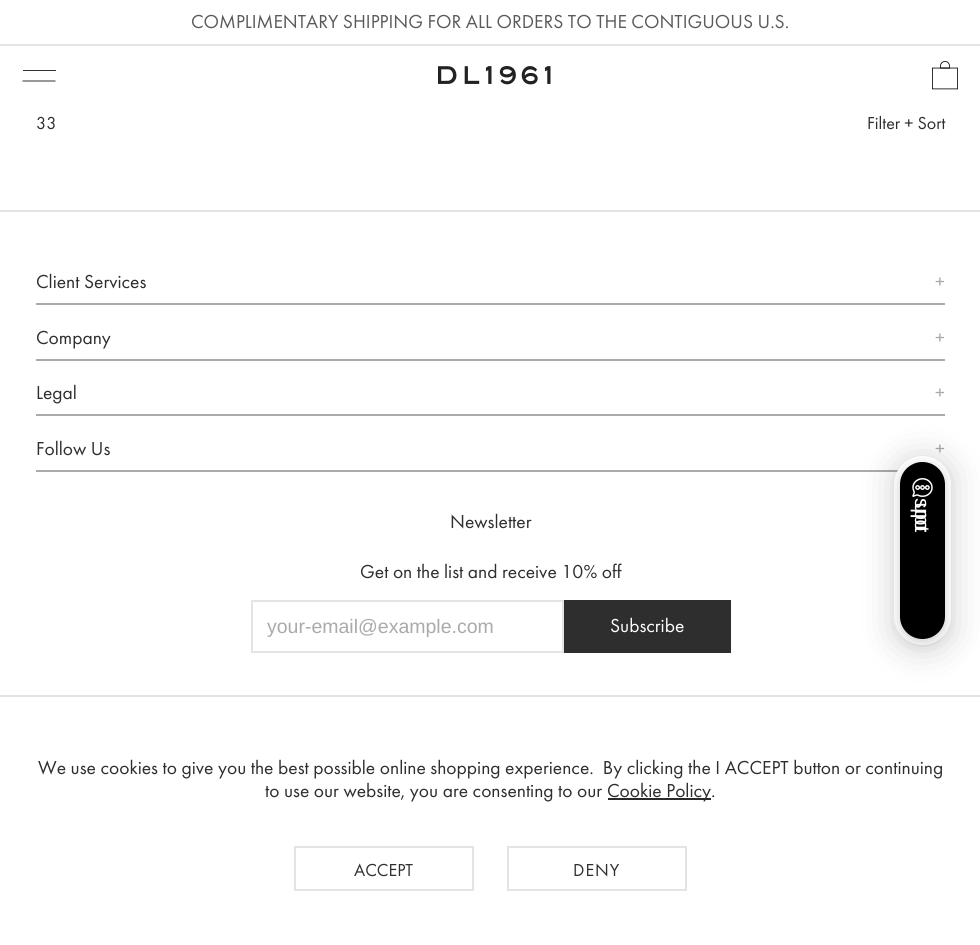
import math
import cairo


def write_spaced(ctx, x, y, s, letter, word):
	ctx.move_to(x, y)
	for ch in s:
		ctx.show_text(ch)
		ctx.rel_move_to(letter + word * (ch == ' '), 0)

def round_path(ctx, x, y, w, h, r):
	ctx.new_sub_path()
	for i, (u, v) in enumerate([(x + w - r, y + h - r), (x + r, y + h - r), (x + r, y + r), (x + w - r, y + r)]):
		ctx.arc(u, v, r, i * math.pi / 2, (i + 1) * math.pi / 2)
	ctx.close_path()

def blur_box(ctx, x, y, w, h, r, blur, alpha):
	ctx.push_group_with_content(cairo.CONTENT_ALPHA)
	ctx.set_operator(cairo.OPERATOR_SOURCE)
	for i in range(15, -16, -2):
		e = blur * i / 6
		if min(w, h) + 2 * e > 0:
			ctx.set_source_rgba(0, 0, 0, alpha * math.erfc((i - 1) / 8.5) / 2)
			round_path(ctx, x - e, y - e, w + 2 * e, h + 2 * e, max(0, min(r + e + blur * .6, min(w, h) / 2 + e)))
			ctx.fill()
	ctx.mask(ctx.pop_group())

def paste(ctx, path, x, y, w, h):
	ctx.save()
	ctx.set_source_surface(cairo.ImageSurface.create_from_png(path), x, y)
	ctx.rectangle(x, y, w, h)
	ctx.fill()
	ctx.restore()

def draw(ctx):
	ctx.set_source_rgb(1, 1, 1)
	ctx.paint()
	ctx.set_source_rgb(0.894, 0.894, 0.894)
	ctx.rectangle(0, 44, 980, 2)
	ctx.fill()
	ctx.select_font_face('Futura PT')
	ctx.set_font_size(19.5)
	ctx.set_source_rgb(0.353, 0.353, 0.353)
	ctx.move_to(191, 28)
	ctx.show_text('COMPLIMENTARY SHIPPING FOR ALL ORDERS TO THE CONTIGUOUS U.S.')
	ctx.set_source_rgb(0.2, 0.2, 0.2)
	ctx.rectangle(23, 70, 33, 1)
	ctx.fill()
	ctx.new_path()
	ctx.move_to(22.5, 81)
	ctx.line_to(55.5, 81)
	ctx.set_source_rgb(0, 0, 0)
	ctx.set_line_width(0.8)
	ctx.stroke()
	paste(ctx, 'media/1.png', 438, 66, 113, 19)
	paste(ctx, 'media/2.png', 932, 61, 26, 29)
	ctx.set_font_size(18)
	ctx.set_source_rgb(0.18, 0.18, 0.18)
	ctx.move_to(36, 129)
	ctx.show_text('33')
	ctx.move_to(867, 129)
	ctx.show_text('Filter + Sort')
	ctx.set_source_rgb(0.894, 0.89, 0.894)
	ctx.rectangle(0, 210, 980, 2)
	ctx.fill()
	ctx.set_source_rgb(0.667, 0.667, 0.667)
	ctx.rectangle(36, 303, 909, 2)
	ctx.fill()
	ctx.set_font_size(19.5)
	ctx.set_source_rgb(0.18, 0.18, 0.18)
	ctx.move_to(36, 288)
	ctx.show_text('Client Services')
	ctx.set_source_rgb(0.667, 0.667, 0.667)
	ctx.move_to(935, 288)
	ctx.show_text('+')
	ctx.rectangle(36, 359, 909, 2)
	ctx.fill()
	ctx.set_source_rgb(0.18, 0.18, 0.18)
	ctx.move_to(36, 344)
	ctx.show_text('Company')
	ctx.set_source_rgb(0.667, 0.667, 0.667)
	ctx.move_to(935, 344)
	ctx.show_text('+')
	ctx.rectangle(36, 414, 909, 2)
	ctx.fill()
	ctx.set_source_rgb(0.18, 0.18, 0.18)
	ctx.move_to(36, 399)
	ctx.show_text('Legal')
	ctx.set_source_rgb(0.667, 0.667, 0.667)
	ctx.move_to(935, 399)
	ctx.show_text('+')
	ctx.rectangle(36, 470, 862, 2)
	ctx.fill()
	ctx.set_source_rgb(0.18, 0.18, 0.18)
	ctx.move_to(36, 455)
	ctx.show_text('Follow Us')
	ctx.set_source_rgb(0.667, 0.667, 0.667)
	ctx.move_to(935, 455)
	ctx.show_text('+')
	ctx.set_source_rgb(0.18, 0.18, 0.18)
	ctx.move_to(450, 528)
	ctx.show_text('Newsletter')
	ctx.move_to(360, 578)
	ctx.show_text('Get on the list and receive 10% off')
	ctx.rectangle(252, 601, 311, 51)
	ctx.set_source_rgb(0.894, 0.894, 0.894)
	ctx.set_line_width(2)
	ctx.stroke()
	ctx.select_font_face('Liberation Sans')
	ctx.set_source_rgb(0.667, 0.667, 0.667)
	ctx.move_to(267, 633)
	ctx.show_text('your-email@example.com')
	ctx.set_source_rgb(0.18, 0.18, 0.18)
	ctx.rectangle(564, 600, 167, 53)
	ctx.fill()
	ctx.select_font_face('Futura PT')
	ctx.set_source_rgb(1, 1, 1)
	ctx.move_to(610, 632)
	ctx.show_text('Subscribe')
	ctx.set_source_rgb(0.894, 0.894, 0.894)
	ctx.rectangle(0, 695, 980, 2)
	ctx.fill()
	ctx.set_source_rgb(0, 0, 0)
	blur_box(ctx, 893, 458, 60, 192, 30, 18, 0.16)
	ctx.set_source_rgb(1, 1, 1)
	round_path(ctx, 894, 456, 57, 189, 28.5)
	ctx.fill()
	ctx.set_source_rgb(0, 0, 0)
	blur_box(ctx, 900, 465, 45, 177, 22.5, 6, 0.2)
	ctx.set_source_rgb(0, 0, 0)
	round_path(ctx, 900, 462, 45, 177, 22.5)
	ctx.fill()
	paste(ctx, 'media/3.png', 912, 478, 21, 19)
	ctx.select_font_face('Liberation Sans')
	ctx.set_font_size(21)
	ctx.set_source_rgb(1, 1, 1)
	ctx.save()
	ctx.translate(915, 498)
	ctx.rotate(90 * math.pi / 180)
	write_spaced(ctx, 0, 0, 'support', -6, 0)
	ctx.restore()
	ctx.select_font_face('Futura PT')
	ctx.set_font_size(19.5)
	ctx.set_source_rgb(0.18, 0.18, 0.18)
	ctx.move_to(38, 774)
	ctx.show_text('We use cookies to give you the best possible online shopping experience.  By clicking the I ACCEPT button or continuing')
	ctx.move_to(265, 797)
	ctx.show_text('to use our website, you are consenting to our')
	ctx.set_source_rgb(0.169, 0.165, 0.165)
	ctx.rectangle(608, 798, 103, 2)
	ctx.fill()
	ctx.set_source_rgb(0.18, 0.18, 0.18)
	ctx.move_to(607, 797)
	ctx.show_text('Cookie Policy.')
	ctx.rectangle(295, 847, 178, 43)
	ctx.set_source_rgb(0.894, 0.894, 0.894)
	ctx.stroke()
	ctx.set_font_size(18)
	ctx.set_source_rgb(0.18, 0.18, 0.18)
	ctx.move_to(354, 876)
	ctx.show_text('ACCEPT')
	ctx.rectangle(508, 847, 178, 43)
	ctx.set_source_rgb(0.894, 0.894, 0.894)
	ctx.stroke()
	ctx.set_source_rgb(0.18, 0.18, 0.18)
	write_spaced(ctx, 573, 876, 'DENY', 1, 0)


surface = cairo.ImageSurface(cairo.FORMAT_RGB24, 980, 945)
ctx = cairo.Context(surface)
options = cairo.FontOptions()
options.set_hint_metrics(cairo.HINT_METRICS_OFF)
options.set_hint_style(cairo.HINT_STYLE_NONE)
ctx.set_font_options(options)
ctx.set_miter_limit(4)
draw(ctx)
surface.write_to_png('image.png')
